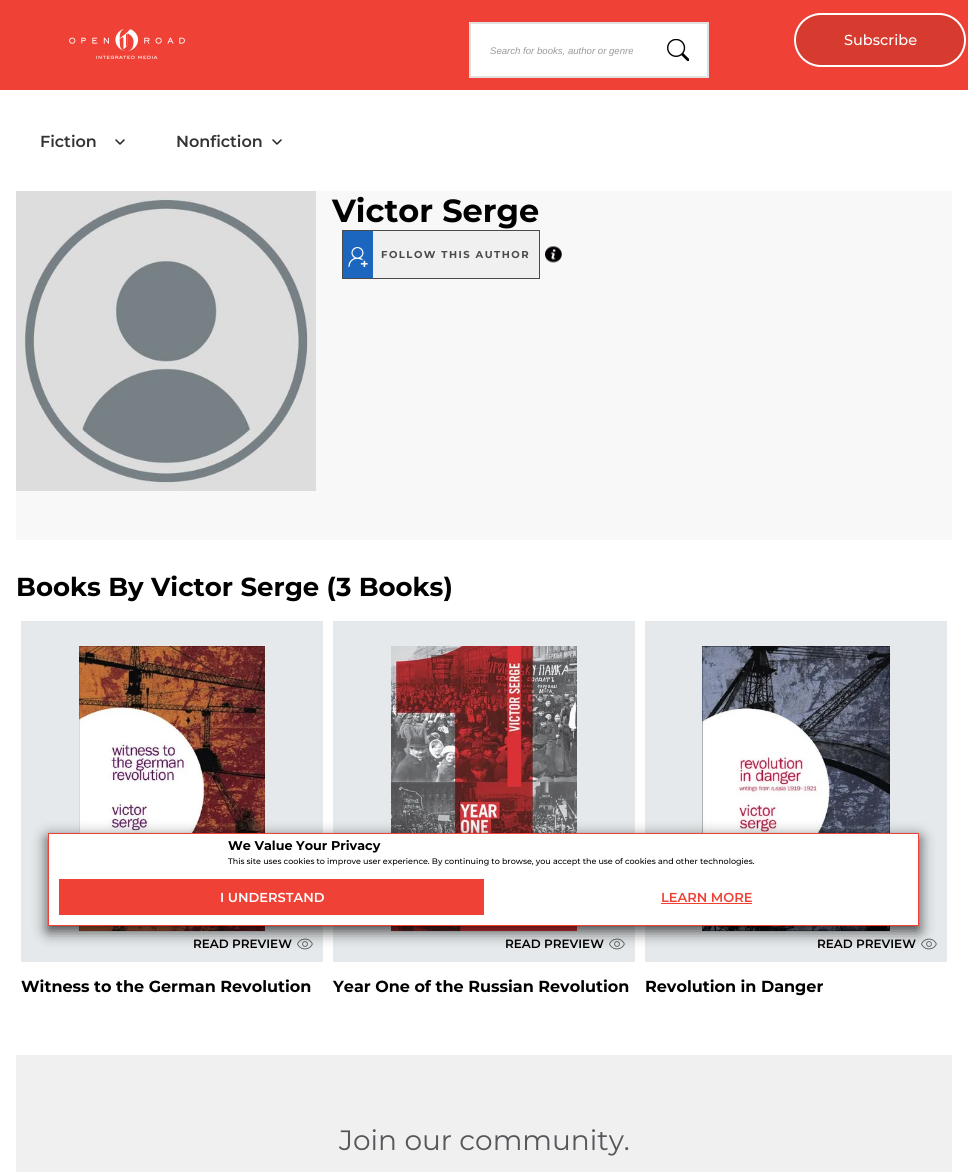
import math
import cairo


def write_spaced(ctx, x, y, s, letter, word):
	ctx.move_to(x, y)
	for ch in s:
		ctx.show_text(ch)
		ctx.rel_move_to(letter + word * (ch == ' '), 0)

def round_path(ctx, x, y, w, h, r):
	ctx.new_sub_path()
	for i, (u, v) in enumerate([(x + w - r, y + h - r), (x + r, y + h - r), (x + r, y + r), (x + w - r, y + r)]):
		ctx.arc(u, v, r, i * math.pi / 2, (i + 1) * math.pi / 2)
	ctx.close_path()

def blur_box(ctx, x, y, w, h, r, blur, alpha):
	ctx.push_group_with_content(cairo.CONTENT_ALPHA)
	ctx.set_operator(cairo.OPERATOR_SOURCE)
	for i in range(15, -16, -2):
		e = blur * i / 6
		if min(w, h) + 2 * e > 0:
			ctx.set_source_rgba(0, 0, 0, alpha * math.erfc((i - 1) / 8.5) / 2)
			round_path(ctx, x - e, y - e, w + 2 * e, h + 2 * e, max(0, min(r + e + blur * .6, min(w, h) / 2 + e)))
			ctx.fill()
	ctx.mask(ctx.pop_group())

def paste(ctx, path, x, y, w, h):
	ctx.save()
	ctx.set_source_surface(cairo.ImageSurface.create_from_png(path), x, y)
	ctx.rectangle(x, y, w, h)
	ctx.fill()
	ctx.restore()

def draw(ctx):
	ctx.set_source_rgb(1, 1, 1)
	ctx.paint()
	ctx.set_source_rgb(0.937, 0.255, 0.208)
	ctx.rectangle(0, 0, 968, 90)
	ctx.fill()
	paste(ctx, 'media/1.png', 69, 29, 116, 30)
	ctx.set_source_rgb(0.843, 0.231, 0.188)
	round_path(ctx, 795, 14, 170, 52, 26)
	ctx.fill_preserve()
	ctx.set_source_rgb(1, 1, 1)
	ctx.stroke()
	ctx.select_font_face('Montserrat Medium')
	ctx.set_font_size(14.5)
	ctx.move_to(844, 45)
	ctx.show_text('Subscribe')
	ctx.rectangle(470, 23, 238, 54)
	ctx.fill_preserve()
	ctx.set_source_rgb(0.878, 0.878, 0.878)
	ctx.stroke()
	ctx.select_font_face('Liberation Sans', cairo.FONT_SLANT_ITALIC)
	ctx.set_font_size(9.6)
	ctx.set_source_rgb(0.6, 0.6, 0.6)
	ctx.move_to(490, 54)
	ctx.show_text('Search for books, author or genre')
	paste(ctx, 'media/2.png', 667, 39, 22, 22)
	ctx.select_font_face('Montserrat SemiBold')
	ctx.set_font_size(16)
	ctx.set_source_rgb(0.2, 0.2, 0.2)
	ctx.move_to(40, 147)
	ctx.show_text('Fiction')
	ctx.new_path()
	ctx.move_to(116, 140)
	ctx.line_to(120, 144)
	ctx.line_to(124, 140)
	ctx.set_source_rgb(0.133, 0.133, 0.133)
	ctx.set_line_width(1.5)
	ctx.set_line_cap(cairo.LINE_CAP_ROUND)
	ctx.set_line_join(cairo.LINE_JOIN_ROUND)
	ctx.stroke()
	ctx.set_source_rgb(0.2, 0.2, 0.2)
	ctx.move_to(176, 147)
	ctx.show_text('Nonfiction')
	ctx.new_path()
	ctx.move_to(273, 140)
	ctx.line_to(277, 144)
	ctx.line_to(281, 140)
	ctx.set_source_rgb(0.133, 0.133, 0.133)
	ctx.stroke()
	ctx.set_source_rgb(0.969, 0.969, 0.969)
	ctx.rectangle(16, 191, 936, 349)
	ctx.fill()
	paste(ctx, 'media/3.png', 16, 191, 300, 300)
	ctx.select_font_face('Montserrat', cairo.FONT_SLANT_NORMAL, cairo.FONT_WEIGHT_BOLD)
	ctx.set_font_size(32)
	ctx.set_source_rgb(0, 0, 0)
	ctx.move_to(332, 222)
	ctx.show_text('Victor Serge')
	ctx.set_source_rgb(0.941, 0.941, 0.945)
	ctx.rectangle(373, 231, 166, 47)
	ctx.fill()
	ctx.rectangle(342.5, 230.5, 197, 48)
	ctx.set_source_rgb(0.29, 0.29, 0.29)
	ctx.set_line_width(1)
	ctx.set_line_cap(cairo.LINE_CAP_BUTT)
	ctx.set_line_join(cairo.LINE_JOIN_MITER)
	ctx.stroke()
	ctx.set_source_rgb(0.114, 0.4, 0.749)
	ctx.rectangle(343, 231, 30, 47)
	ctx.fill()
	paste(ctx, 'media/4.png', 348, 247, 20, 20)
	ctx.set_font_size(10)
	ctx.set_source_rgb(0.29, 0.29, 0.29)
	write_spaced(ctx, 381, 258, 'FOLLOW THIS AUTHOR', 1.5, 0)
	paste(ctx, 'media/5.png', 545, 246, 17, 17)
	ctx.set_font_size(26)
	ctx.set_source_rgb(0, 0, 0)
	ctx.move_to(16, 596)
	ctx.show_text('Books By Victor Serge (3 Books)')
	ctx.set_source_rgb(0.898, 0.914, 0.918)
	ctx.rectangle(21, 621, 302, 341)
	ctx.fill()
	paste(ctx, 'media/6.png', 79, 646, 186, 285)
	ctx.select_font_face('Montserrat SemiBold')
	ctx.set_font_size(12)
	ctx.set_source_rgb(0, 0, 0)
	ctx.move_to(193, 948)
	ctx.show_text('READ PREVIEW')
	paste(ctx, 'media/7.png', 297, 938, 16, 12)
	ctx.select_font_face('Montserrat', cairo.FONT_SLANT_NORMAL, cairo.FONT_WEIGHT_BOLD)
	ctx.set_font_size(16)
	ctx.move_to(21, 992)
	ctx.show_text('Witness to the German Revolution')
	ctx.set_source_rgb(0.898, 0.914, 0.918)
	ctx.rectangle(333, 621, 302, 341)
	ctx.fill()
	paste(ctx, 'media/8.png', 391, 646, 186, 285)
	ctx.select_font_face('Montserrat SemiBold')
	ctx.set_font_size(12)
	ctx.set_source_rgb(0, 0, 0)
	ctx.move_to(505, 948)
	ctx.show_text('READ PREVIEW')
	paste(ctx, 'media/7.png', 609, 938, 16, 12)
	ctx.select_font_face('Montserrat', cairo.FONT_SLANT_NORMAL, cairo.FONT_WEIGHT_BOLD)
	ctx.set_font_size(16)
	ctx.move_to(333, 992)
	ctx.show_text('Year One of the Russian Revolution')
	ctx.set_source_rgb(0.898, 0.914, 0.918)
	ctx.rectangle(645, 621, 302, 341)
	ctx.fill()
	paste(ctx, 'media/9.png', 702, 646, 188, 285)
	ctx.select_font_face('Montserrat SemiBold')
	ctx.set_font_size(12)
	ctx.set_source_rgb(0, 0, 0)
	ctx.move_to(817, 948)
	ctx.show_text('READ PREVIEW')
	paste(ctx, 'media/7.png', 921, 938, 16, 12)
	ctx.select_font_face('Montserrat', cairo.FONT_SLANT_NORMAL, cairo.FONT_WEIGHT_BOLD)
	ctx.set_font_size(16)
	ctx.move_to(645, 992)
	ctx.show_text('Revolution in Danger')
	ctx.set_source_rgb(0.941, 0.941, 0.941)
	ctx.rectangle(16, 1055, 936, 117)
	ctx.fill()
	ctx.select_font_face('Montserrat')
	ctx.set_font_size(28)
	ctx.set_source_rgb(0.333, 0.341, 0.353)
	ctx.move_to(339, 1150)
	ctx.show_text('Join our community.')
	ctx.set_source_rgb(0, 0, 0)
	blur_box(ctx, 48, 838, 871, 93, 0, 7.5, 0.75)
	ctx.set_source_rgb(1, 1, 1)
	ctx.rectangle(48.5, 833.5, 870, 92)
	ctx.fill_preserve()
	ctx.set_source_rgb(0.937, 0.255, 0.208)
	ctx.stroke()
	ctx.select_font_face('Montserrat', cairo.FONT_SLANT_NORMAL, cairo.FONT_WEIGHT_BOLD)
	ctx.set_font_size(12.75)
	ctx.set_source_rgb(0, 0, 0)
	ctx.move_to(228, 850)
	ctx.show_text('We Value Your Privacy')
	ctx.select_font_face('Montserrat Medium')
	ctx.set_font_size(8)
	ctx.move_to(228, 864)
	ctx.show_text('This site uses cookies to improve user experience. By continuing to browse, you accept the use of cookies and other technologies.')
	ctx.set_source_rgb(0.937, 0.255, 0.208)
	ctx.rectangle(59, 879, 425, 36)
	ctx.fill()
	ctx.select_font_face('Montserrat SemiBold')
	ctx.set_font_size(13)
	ctx.set_source_rgb(1, 1, 1)
	ctx.move_to(220, 902)
	ctx.show_text('I UNDERSTAND')
	ctx.set_source_rgb(0.937, 0.255, 0.208)
	ctx.move_to(661, 902)
	ctx.show_text('LEARN MORE')
	ctx.rectangle(661, 903, 91, 1)
	ctx.fill()


surface = cairo.ImageSurface(cairo.FORMAT_RGB24, 968, 1172)
ctx = cairo.Context(surface)
options = cairo.FontOptions()
options.set_hint_metrics(cairo.HINT_METRICS_OFF)
options.set_hint_style(cairo.HINT_STYLE_NONE)
ctx.set_font_options(options)
ctx.set_miter_limit(4)
draw(ctx)
surface.write_to_png('image.png')
